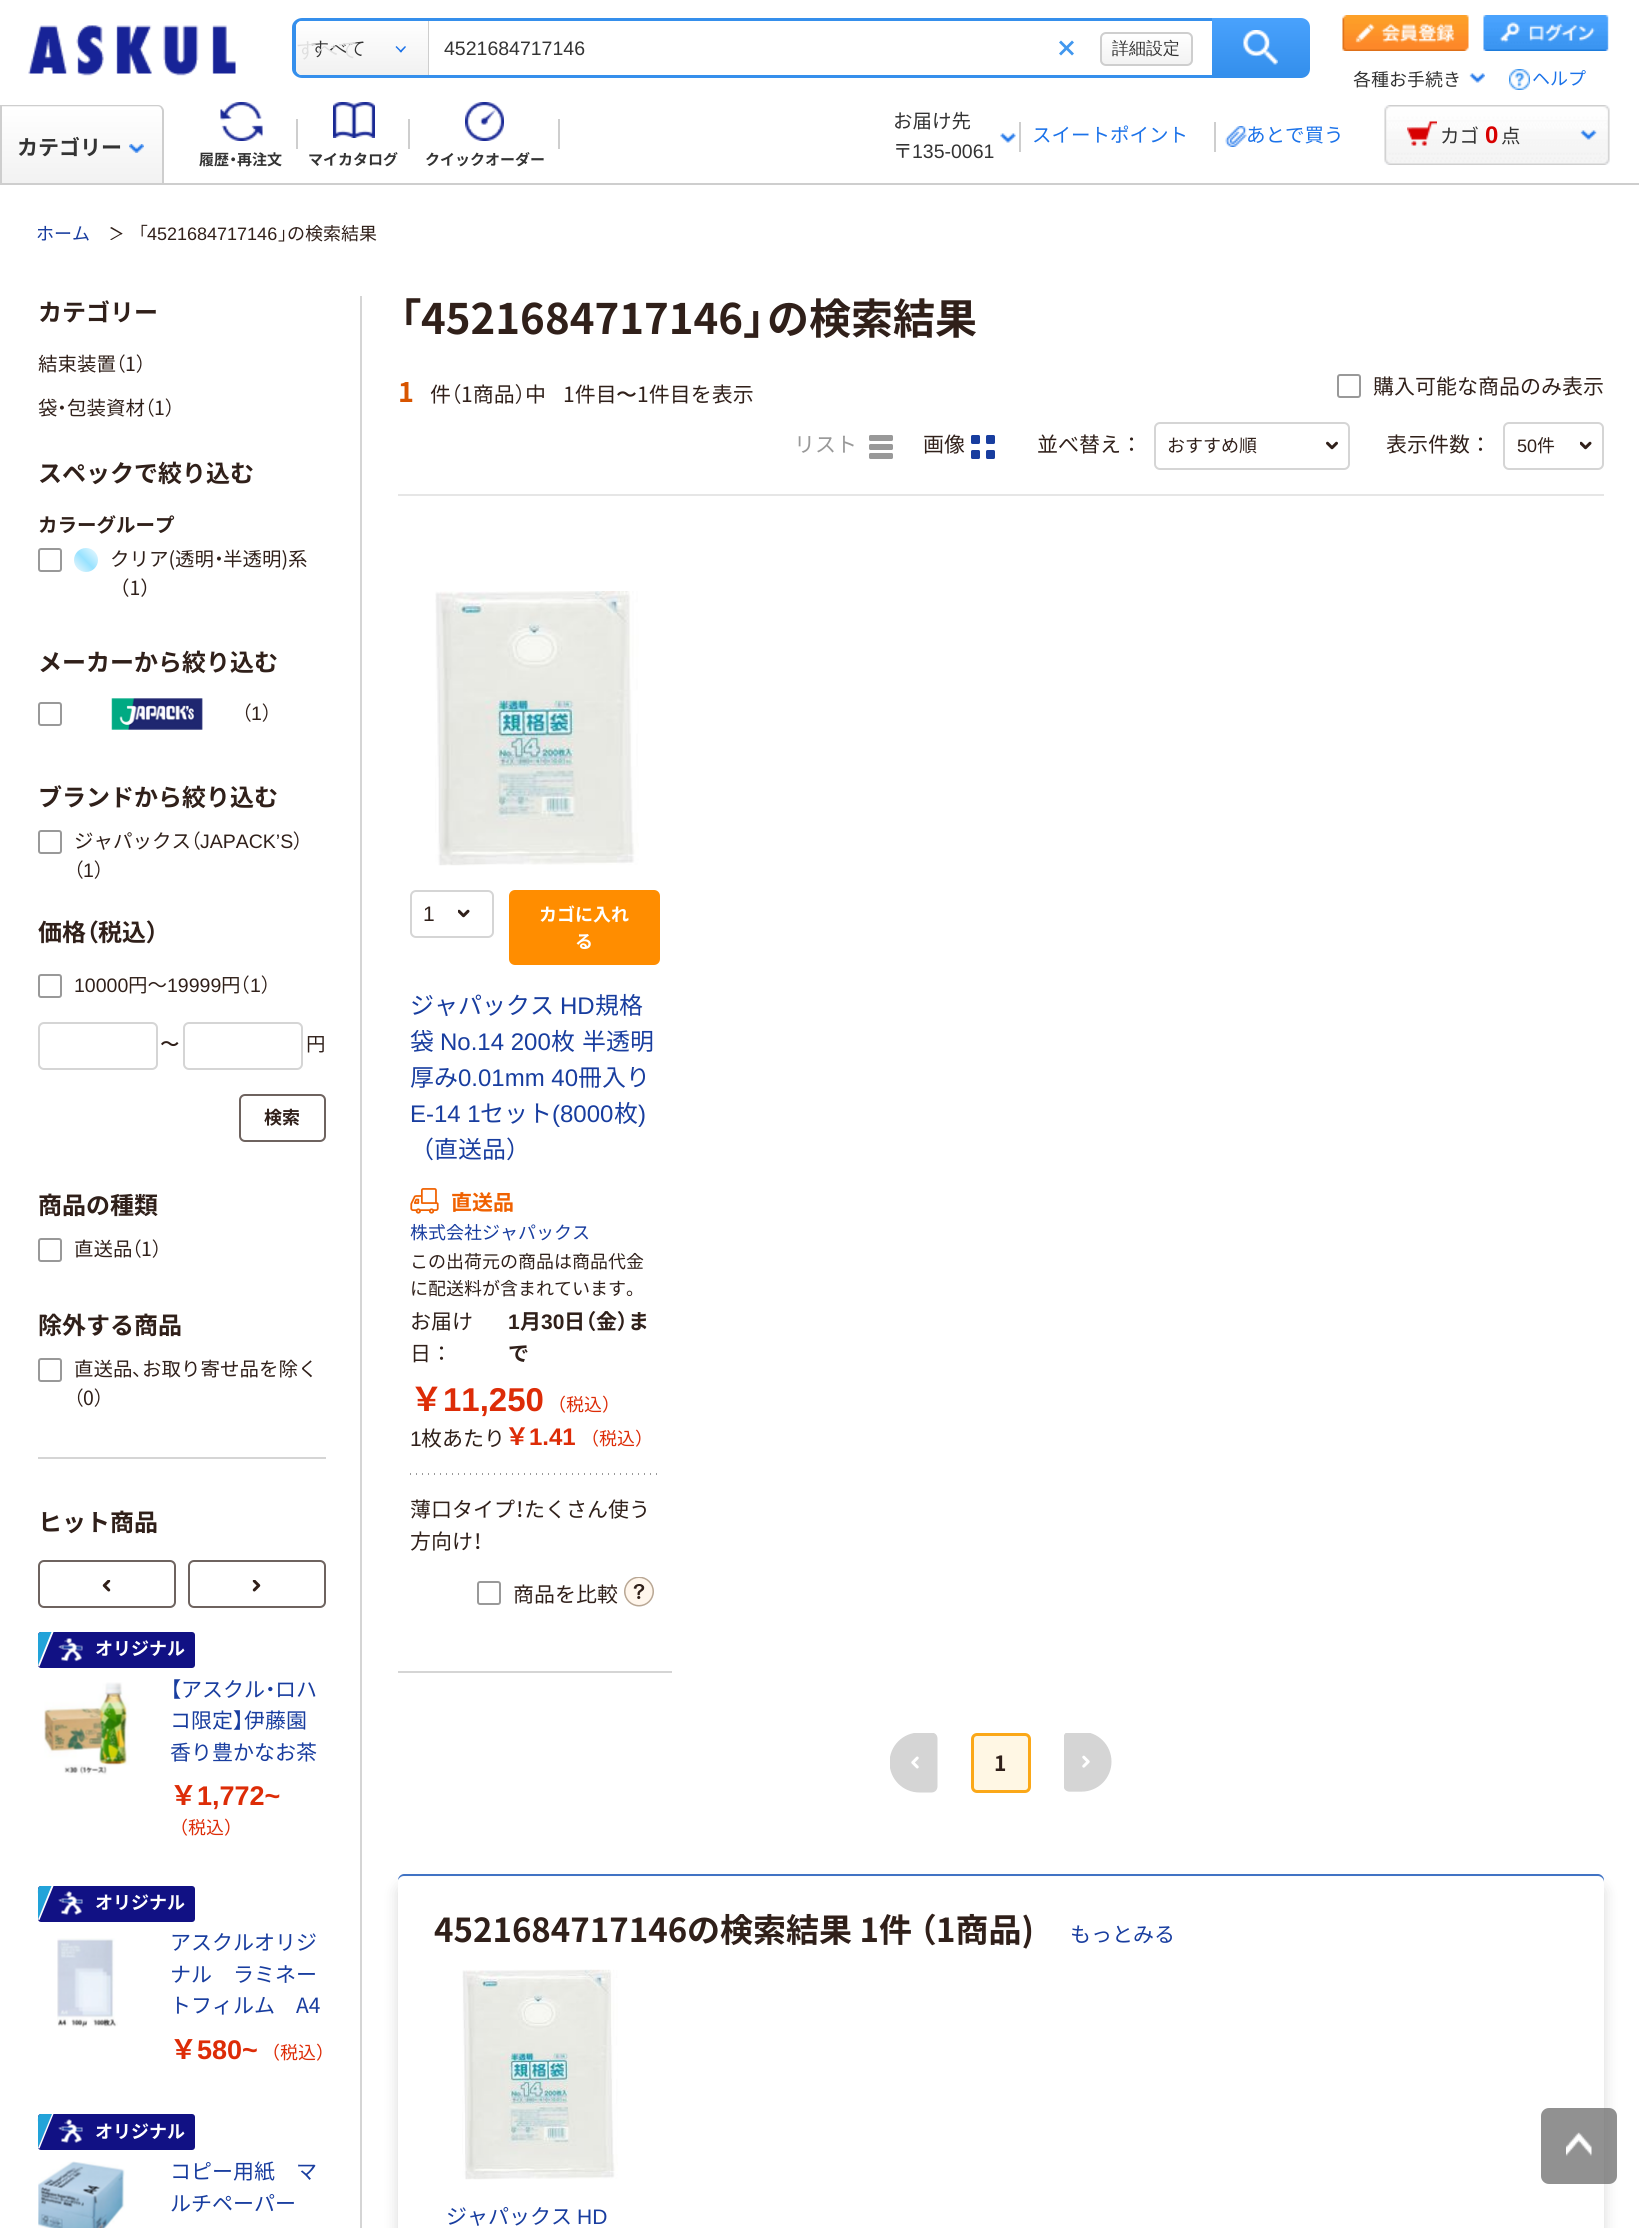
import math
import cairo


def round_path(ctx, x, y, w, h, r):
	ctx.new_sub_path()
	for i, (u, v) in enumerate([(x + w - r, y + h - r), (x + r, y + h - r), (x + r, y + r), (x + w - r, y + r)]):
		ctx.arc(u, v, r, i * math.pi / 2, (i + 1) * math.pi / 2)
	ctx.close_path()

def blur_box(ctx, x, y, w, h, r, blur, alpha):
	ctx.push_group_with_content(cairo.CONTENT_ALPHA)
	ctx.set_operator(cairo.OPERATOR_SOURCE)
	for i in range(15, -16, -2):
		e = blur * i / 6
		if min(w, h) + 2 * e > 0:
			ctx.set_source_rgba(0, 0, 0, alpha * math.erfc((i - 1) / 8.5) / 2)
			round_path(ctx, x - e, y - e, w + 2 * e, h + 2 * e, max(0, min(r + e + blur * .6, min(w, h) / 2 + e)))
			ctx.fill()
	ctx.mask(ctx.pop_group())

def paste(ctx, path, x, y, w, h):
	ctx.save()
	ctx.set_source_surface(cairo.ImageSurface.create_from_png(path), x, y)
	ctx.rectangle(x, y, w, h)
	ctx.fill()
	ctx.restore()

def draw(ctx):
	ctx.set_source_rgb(1, 1, 1)
	ctx.paint()
	paste(ctx, 'media/1.png', 28, 25, 208, 51)
	ctx.set_source_rgb(0.208, 0.561, 0.925)
	ctx.set_fill_rule(cairo.FILL_RULE_EVEN_ODD)
	ctx.new_path()
	ctx.move_to(302, 18)
	ctx.line_to(429, 18)
	ctx.line_to(429, 78)
	ctx.line_to(302, 78)
	ctx.curve_to(297, 78, 292, 74, 292, 69)
	ctx.line_to(292, 27)
	ctx.curve_to(292, 22, 297, 18, 302, 18)
	ctx.close_path()
	ctx.move_to(302, 21)
	ctx.line_to(429, 21)
	ctx.line_to(429, 75)
	ctx.line_to(302, 75)
	ctx.curve_to(298, 75, 296, 72, 296, 69)
	ctx.line_to(296, 27)
	ctx.curve_to(296, 24, 298, 21, 302, 21)
	ctx.close_path()
	ctx.fill()
	gradient = cairo.LinearGradient(362, 21, 362, 75)
	gradient.add_color_stop_rgba(0, 1, 1, 1, 1)
	gradient.add_color_stop_rgba(1, 0.945, 0.945, 0.945, 1)
	ctx.set_source(gradient)
	ctx.new_path()
	ctx.move_to(302, 21)
	ctx.line_to(429, 21)
	ctx.line_to(429, 75)
	ctx.line_to(302, 75)
	ctx.curve_to(298.5, 75, 296, 72.5, 296, 69)
	ctx.line_to(296, 27)
	ctx.curve_to(296, 23.5, 298.5, 21, 302, 21)
	ctx.close_path()
	ctx.fill()
	ctx.set_source_rgb(0.808, 0.808, 0.808)
	ctx.rectangle(428, 21, 1, 54)
	ctx.fill()
	ctx.select_font_face('WenQuanYi Zen Hei Medium')
	ctx.set_font_size(18)
	ctx.set_source_rgb(0.2, 0.2, 0.2)
	ctx.move_to(311, 54)
	ctx.show_text('すべて')
	ctx.set_source_rgb(0.106, 0.447, 0.914)
	ctx.set_fill_rule(cairo.FILL_RULE_WINDING)
	ctx.new_path()
	ctx.move_to(405, 46)
	ctx.line_to(406, 47)
	ctx.line_to(401, 52.5)
	ctx.line_to(399.5, 51.5)
	ctx.close_path()
	ctx.fill()
	ctx.new_path()
	ctx.move_to(396.5, 46)
	ctx.line_to(402, 51.5)
	ctx.line_to(401, 52.5)
	ctx.line_to(395.5, 47)
	ctx.close_path()
	ctx.fill()
	ctx.set_font_size(20)
	ctx.set_source_rgb(0.875, 0.875, 0.875)
	ctx.move_to(297, 56)
	ctx.show_text('すべて')
	ctx.set_source_rgb(0.208, 0.561, 0.925)
	ctx.rectangle(429, 18, 783, 3)
	ctx.fill()
	ctx.rectangle(429, 75, 783, 3)
	ctx.fill()
	ctx.select_font_face('Liberation Sans')
	ctx.set_font_size(19.5)
	ctx.set_source_rgb(0.2, 0.2, 0.2)
	ctx.move_to(444, 55)
	ctx.show_text('4521684717146')
	ctx.set_source_rgb(0.255, 0.592, 0.933)
	ctx.new_path()
	ctx.move_to(1072, 40.5)
	ctx.line_to(1074, 42.5)
	ctx.line_to(1061, 55.5)
	ctx.line_to(1059, 53.5)
	ctx.close_path()
	ctx.fill()
	ctx.new_path()
	ctx.move_to(1059, 42.5)
	ctx.line_to(1061, 40.5)
	ctx.line_to(1074, 53.5)
	ctx.line_to(1072, 55.5)
	ctx.close_path()
	ctx.fill()
	ctx.save()
	round_path(ctx, 1100, 32, 93, 34, 6)
	ctx.clip()
	gradient = cairo.LinearGradient(1146, 33, 1146, 65)
	gradient.add_color_stop_rgba(0, 1, 1, 1, 1)
	gradient.add_color_stop_rgba(1, 0.949, 0.949, 0.949, 1)
	ctx.set_source(gradient)
	ctx.rectangle(1100, 33, 93, 32)
	ctx.fill()
	ctx.restore()
	round_path(ctx, 1101, 33, 91, 32, 5)
	ctx.set_source_rgb(0.808, 0.808, 0.808)
	ctx.stroke()
	ctx.select_font_face('WenQuanYi Zen Hei Medium')
	ctx.set_font_size(17)
	ctx.set_source_rgb(0.2, 0.2, 0.2)
	ctx.move_to(1112, 54)
	ctx.show_text('詳細設定')
	gradient = cairo.LinearGradient(1261, 18, 1261, 78)
	gradient.add_color_stop_rgba(0, 0.286, 0.635, 0.992, 1)
	gradient.add_color_stop_rgba(1, 0.2, 0.557, 0.922, 1)
	ctx.set_source(gradient)
	ctx.new_path()
	ctx.move_to(1212, 18)
	ctx.line_to(1301, 18)
	ctx.curve_to(1306, 18, 1310, 22, 1310, 27)
	ctx.line_to(1310, 69)
	ctx.curve_to(1310, 74, 1306, 78, 1301, 78)
	ctx.line_to(1212, 78)
	ctx.close_path()
	ctx.fill()
	paste(ctx, 'media/2.png', 1243, 30, 35, 35)
	paste(ctx, 'media/3.png', 1342, 15, 127, 36)
	paste(ctx, 'media/4.png', 1483, 15, 126, 36)
	ctx.select_font_face('Noto Sans JP')
	ctx.set_font_size(18)
	ctx.set_source_rgb(0.2, 0.2, 0.2)
	ctx.move_to(1353, 86)
	ctx.show_text('各種お手続き')
	paste(ctx, 'media/5.png', 1469, 73, 16, 10)
	paste(ctx, 'media/6.png', 1509, 69, 21, 21)
	ctx.set_source_rgb(0.106, 0.447, 0.914)
	ctx.move_to(1532, 85)
	ctx.show_text('ヘルプ')
	ctx.set_source_rgb(0.808, 0.808, 0.808)
	ctx.rectangle(296, 119, 2, 30)
	ctx.fill()
	paste(ctx, 'media/7.png', 220, 102, 43, 39)
	ctx.select_font_face('Noto Sans CJK JP', cairo.FONT_SLANT_NORMAL, cairo.FONT_WEIGHT_BOLD)
	ctx.set_font_size(15)
	ctx.set_source_rgb(0.2, 0.2, 0.2)
	ctx.move_to(199, 165)
	ctx.show_text('履歴')
	ctx.select_font_face('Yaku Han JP', cairo.FONT_SLANT_NORMAL, cairo.FONT_WEIGHT_BOLD)
	ctx.move_to(229, 165)
	ctx.show_text('・')
	ctx.select_font_face('Noto Sans CJK JP', cairo.FONT_SLANT_NORMAL, cairo.FONT_WEIGHT_BOLD)
	ctx.move_to(237, 165)
	ctx.show_text('再注文')
	ctx.set_source_rgb(0.808, 0.808, 0.808)
	ctx.rectangle(408, 119, 2, 30)
	ctx.fill()
	paste(ctx, 'media/8.png', 333, 102, 42, 36)
	ctx.set_source_rgb(0.2, 0.2, 0.2)
	ctx.move_to(308, 165)
	ctx.show_text('マイカタログ')
	ctx.set_source_rgb(0.808, 0.808, 0.808)
	ctx.rectangle(558, 119, 2, 30)
	ctx.fill()
	paste(ctx, 'media/9.png', 465, 102, 39, 39)
	ctx.set_source_rgb(0.2, 0.2, 0.2)
	ctx.move_to(425, 165)
	ctx.show_text('クイックオーダー')
	ctx.select_font_face('Noto Sans JP')
	ctx.set_font_size(19.5)
	ctx.move_to(893, 128)
	ctx.show_text('お届け先')
	paste(ctx, 'media/10.png', 1000, 133, 16, 10)
	ctx.move_to(893, 158)
	ctx.show_text('〒')
	ctx.select_font_face('Liberation Sans')
	ctx.move_to(912, 158)
	ctx.show_text('135-0061')
	ctx.set_source_rgb(0.808, 0.808, 0.808)
	ctx.rectangle(1019, 122, 2, 30)
	ctx.fill()
	ctx.select_font_face('Noto Sans JP')
	ctx.set_source_rgb(0.106, 0.447, 0.914)
	ctx.move_to(1032, 142)
	ctx.show_text('スイートポイント')
	ctx.set_source_rgb(0.808, 0.808, 0.808)
	ctx.rectangle(1214, 122, 2, 30)
	ctx.fill()
	paste(ctx, 'media/11.png', 1225, 126, 22, 21)
	ctx.set_source_rgb(0.106, 0.447, 0.914)
	ctx.move_to(1246, 142)
	ctx.show_text('あとで買う')
	ctx.set_source_rgb(0.808, 0.808, 0.808)
	ctx.rectangle(0, 183, 1639, 2)
	ctx.fill()
	ctx.save()
	ctx.new_path()
	ctx.move_to(0, 105)
	ctx.line_to(158, 105)
	ctx.curve_to(161.5, 105, 164, 107.5, 164, 111)
	ctx.line_to(164, 183)
	ctx.line_to(0, 183)
	ctx.close_path()
	ctx.clip()
	gradient = cairo.LinearGradient(82, 30, 82, 107)
	gradient.add_color_stop_rgba(0, 1, 1, 1, 1)
	gradient.add_color_stop_rgba(1, 0.949, 0.949, 0.949, 1)
	ctx.set_source(gradient)
	ctx.rectangle(0, 105, 164, 2)
	ctx.fill()
	gradient = cairo.LinearGradient(82, 107, 82, 183)
	gradient.add_color_stop_rgba(0, 1, 1, 1, 1)
	gradient.add_color_stop_rgba(1, 0.949, 0.949, 0.949, 1)
	ctx.set_source(gradient)
	ctx.rectangle(2, 107, 162, 76)
	ctx.fill()
	ctx.restore()
	ctx.set_fill_rule(cairo.FILL_RULE_EVEN_ODD)
	ctx.new_path()
	ctx.move_to(0, 105)
	ctx.line_to(158, 105)
	ctx.curve_to(161, 105, 164, 108, 164, 111)
	ctx.line_to(164, 183)
	ctx.line_to(0, 183)
	ctx.close_path()
	ctx.move_to(2, 106)
	ctx.line_to(158, 106)
	ctx.curve_to(160, 106, 162, 109, 162, 111)
	ctx.line_to(162, 183)
	ctx.line_to(2, 183)
	ctx.close_path()
	ctx.fill()
	ctx.select_font_face('Noto Sans CJK JP', cairo.FONT_SLANT_NORMAL, cairo.FONT_WEIGHT_BOLD)
	ctx.set_font_size(21)
	ctx.set_source_rgb(0.2, 0.2, 0.2)
	ctx.move_to(17, 155)
	ctx.show_text('カテゴリー')
	paste(ctx, 'media/12.png', 129, 144, 15, 9)
	paste(ctx, 'media/13.png', 1384, 105, 226, 60)
	paste(ctx, 'media/14.png', 1407, 121, 30, 25)
	ctx.select_font_face('Noto Sans JP')
	ctx.set_font_size(19.5)
	ctx.move_to(1440, 143)
	ctx.show_text('カゴ')
	ctx.select_font_face('Liberation Sans', cairo.FONT_SLANT_NORMAL, cairo.FONT_WEIGHT_BOLD)
	ctx.set_font_size(24)
	ctx.set_source_rgb(0.847, 0, 0)
	ctx.move_to(1485, 143)
	ctx.show_text('0')
	ctx.select_font_face('Noto Sans JP')
	ctx.set_font_size(19.5)
	ctx.set_source_rgb(0.2, 0.2, 0.2)
	ctx.move_to(1501, 143)
	ctx.show_text('点')
	ctx.set_font_size(18)
	ctx.set_source_rgb(0.094, 0.239, 0.624)
	ctx.move_to(36, 240)
	ctx.show_text('ホーム')
	ctx.set_source_rgb(0.188, 0.125, 0.102)
	ctx.set_fill_rule(cairo.FILL_RULE_WINDING)
	ctx.new_path()
	ctx.move_to(111.5, 227)
	ctx.line_to(122.5, 233.5)
	ctx.line_to(121.5, 234.5)
	ctx.line_to(110, 228)
	ctx.close_path()
	ctx.fill()
	ctx.new_path()
	ctx.move_to(121.5, 233)
	ctx.line_to(122.5, 233.5)
	ctx.line_to(111.5, 240)
	ctx.line_to(110, 239.5)
	ctx.close_path()
	ctx.fill()
	ctx.select_font_face('Yaku Han JP Light')
	ctx.move_to(138, 240)
	ctx.show_text('「')
	ctx.select_font_face('Liberation Sans')
	ctx.move_to(147, 240)
	ctx.show_text('4521684717146')
	ctx.select_font_face('Yaku Han JP Light')
	ctx.move_to(278, 240)
	ctx.show_text('」')
	ctx.select_font_face('Noto Sans JP')
	ctx.move_to(287, 240)
	ctx.show_text('の検索結果')
	ctx.set_source_rgb(0.835, 0.835, 0.835)
	ctx.rectangle(360, 296, 2, 1932)
	ctx.fill()
	ctx.select_font_face('Noto Sans CJK JP', cairo.FONT_SLANT_NORMAL, cairo.FONT_WEIGHT_BOLD)
	ctx.set_font_size(24)
	ctx.set_source_rgb(0.188, 0.125, 0.102)
	ctx.move_to(38, 321)
	ctx.show_text('カテゴリー')
	ctx.select_font_face('Noto Sans JP')
	ctx.set_font_size(19.5)
	ctx.move_to(38, 371)
	ctx.show_text('結束装置')
	ctx.select_font_face('Yaku Han JP Light')
	ctx.move_to(116, 371)
	ctx.show_text('（')
	ctx.select_font_face('Noto Sans JP')
	ctx.move_to(125, 371)
	ctx.show_text('1')
	ctx.select_font_face('Yaku Han JP Light')
	ctx.move_to(136, 371)
	ctx.show_text('）')
	ctx.select_font_face('Noto Sans JP')
	ctx.move_to(38, 415)
	ctx.show_text('袋')
	ctx.select_font_face('Yaku Han JP Light')
	ctx.move_to(57, 415)
	ctx.show_text('・')
	ctx.select_font_face('Noto Sans JP')
	ctx.move_to(67, 415)
	ctx.show_text('包装資材')
	ctx.select_font_face('Yaku Han JP Light')
	ctx.move_to(145, 415)
	ctx.show_text('（')
	ctx.select_font_face('Noto Sans JP')
	ctx.move_to(154, 415)
	ctx.show_text('1')
	ctx.select_font_face('Yaku Han JP Light')
	ctx.move_to(165, 415)
	ctx.show_text('）')
	ctx.select_font_face('Noto Sans CJK JP', cairo.FONT_SLANT_NORMAL, cairo.FONT_WEIGHT_BOLD)
	ctx.set_font_size(24)
	ctx.move_to(38, 482)
	ctx.show_text('スペックで絞り込む')
	ctx.set_font_size(19.5)
	ctx.move_to(38, 532)
	ctx.show_text('カラーグループ')
	round_path(ctx, 39, 549, 22, 22, 2)
	ctx.set_source_rgb(0.6, 0.6, 0.6)
	ctx.stroke()
	gradient = cairo.LinearGradient(98, 548, 74, 571)
	gradient.add_color_stop_rgba(0, 0.949, 0.984, 1, 1)
	gradient.add_color_stop_rgba(0.53, 0.592, 0.886, 1, 1)
	gradient.add_color_stop_rgba(1, 0.937, 0.973, 0.988, 1)
	ctx.set_source(gradient)
	ctx.arc(86, 560, 12, 0, 2 * math.pi)
	ctx.fill()
	ctx.select_font_face('Noto Sans JP')
	ctx.set_source_rgb(0.188, 0.125, 0.102)
	ctx.move_to(110, 566)
	ctx.show_text('クリア(透明')
	ctx.select_font_face('Yaku Han JP Light')
	ctx.move_to(214, 566)
	ctx.show_text('・')
	ctx.select_font_face('Noto Sans JP')
	ctx.move_to(223, 566)
	ctx.show_text('半透明)系')
	ctx.move_to(110, 595)
	ctx.show_text('（1）')
	ctx.select_font_face('Noto Sans CJK JP', cairo.FONT_SLANT_NORMAL, cairo.FONT_WEIGHT_BOLD)
	ctx.set_font_size(24)
	ctx.move_to(38, 671)
	ctx.show_text('メーカーから絞り込む')
	round_path(ctx, 39, 703, 22, 22, 2)
	ctx.set_source_rgb(0.6, 0.6, 0.6)
	ctx.stroke()
	paste(ctx, 'media/15.png', 111, 698, 92, 32)
	ctx.select_font_face('Yaku Han JP Light')
	ctx.set_font_size(19.5)
	ctx.set_source_rgb(0.188, 0.125, 0.102)
	ctx.move_to(242, 720)
	ctx.show_text('（')
	ctx.select_font_face('Liberation Sans')
	ctx.move_to(251, 720)
	ctx.show_text('1')
	ctx.select_font_face('Yaku Han JP Light')
	ctx.move_to(262, 720)
	ctx.show_text('）')
	ctx.select_font_face('Noto Sans CJK JP', cairo.FONT_SLANT_NORMAL, cairo.FONT_WEIGHT_BOLD)
	ctx.set_font_size(24)
	ctx.move_to(38, 806)
	ctx.show_text('ブランドから絞り込む')
	round_path(ctx, 39, 831, 22, 22, 2)
	ctx.set_source_rgb(0.6, 0.6, 0.6)
	ctx.stroke()
	ctx.select_font_face('Noto Sans JP')
	ctx.set_font_size(19.5)
	ctx.set_source_rgb(0.188, 0.125, 0.102)
	ctx.move_to(74, 848)
	ctx.show_text('ジャパックス')
	ctx.select_font_face('Yaku Han JP Light')
	ctx.move_to(191, 848)
	ctx.show_text('（')
	ctx.select_font_face('Liberation Sans')
	ctx.move_to(200, 848)
	ctx.show_text('JAPACK’S')
	ctx.select_font_face('Yaku Han JP Light')
	ctx.move_to(293, 848)
	ctx.show_text('）')
	ctx.move_to(74, 877)
	ctx.show_text('（')
	ctx.select_font_face('Liberation Sans')
	ctx.move_to(83, 877)
	ctx.show_text('1')
	ctx.select_font_face('Yaku Han JP Light')
	ctx.move_to(94, 877)
	ctx.show_text('）')
	ctx.select_font_face('Noto Sans CJK JP', cairo.FONT_SLANT_NORMAL, cairo.FONT_WEIGHT_BOLD)
	ctx.set_font_size(24)
	ctx.move_to(38, 941)
	ctx.show_text('価格')
	ctx.select_font_face('Yaku Han JP', cairo.FONT_SLANT_NORMAL, cairo.FONT_WEIGHT_BOLD)
	ctx.move_to(86, 941)
	ctx.show_text('（')
	ctx.select_font_face('Noto Sans CJK JP', cairo.FONT_SLANT_NORMAL, cairo.FONT_WEIGHT_BOLD)
	ctx.move_to(98, 941)
	ctx.show_text('税込')
	ctx.select_font_face('Yaku Han JP', cairo.FONT_SLANT_NORMAL, cairo.FONT_WEIGHT_BOLD)
	ctx.move_to(146, 941)
	ctx.show_text('）')
	round_path(ctx, 39, 975, 22, 22, 2)
	ctx.set_source_rgb(0.6, 0.6, 0.6)
	ctx.stroke()
	ctx.select_font_face('Liberation Sans')
	ctx.set_font_size(19.5)
	ctx.set_source_rgb(0.188, 0.125, 0.102)
	ctx.move_to(74, 992)
	ctx.show_text('10000')
	ctx.select_font_face('Noto Sans JP')
	ctx.move_to(128, 992)
	ctx.show_text('円～')
	ctx.select_font_face('Liberation Sans')
	ctx.move_to(167, 992)
	ctx.show_text('19999')
	ctx.select_font_face('Noto Sans JP')
	ctx.move_to(221, 992)
	ctx.show_text('円')
	ctx.select_font_face('Yaku Han JP Light')
	ctx.move_to(240, 992)
	ctx.show_text('（')
	ctx.select_font_face('Liberation Sans')
	ctx.move_to(250, 992)
	ctx.show_text('1')
	ctx.select_font_face('Yaku Han JP Light')
	ctx.move_to(261, 992)
	ctx.show_text('）')
	round_path(ctx, 39, 1023, 118, 46, 5)
	ctx.set_source_rgb(0.835, 0.835, 0.835)
	ctx.stroke()
	ctx.select_font_face('WenQuanYi Zen Hei Medium')
	ctx.set_source_rgb(0.188, 0.125, 0.102)
	ctx.move_to(160, 1051)
	ctx.show_text('〜')
	round_path(ctx, 184, 1023, 118, 46, 5)
	ctx.set_source_rgb(0.835, 0.835, 0.835)
	ctx.stroke()
	ctx.select_font_face('Noto Sans JP')
	ctx.set_source_rgb(0.188, 0.125, 0.102)
	ctx.move_to(306, 1051)
	ctx.show_text('円')
	round_path(ctx, 240, 1095, 85, 46, 5)
	ctx.set_source_rgb(0.431, 0.388, 0.373)
	ctx.stroke()
	ctx.select_font_face('Noto Sans CJK JP', cairo.FONT_SLANT_NORMAL, cairo.FONT_WEIGHT_BOLD)
	ctx.set_font_size(18)
	ctx.set_source_rgb(0.188, 0.125, 0.102)
	ctx.move_to(264, 1124)
	ctx.show_text('検索')
	ctx.set_font_size(24)
	ctx.move_to(38, 1214)
	ctx.show_text('商品の種類')
	round_path(ctx, 39, 1239, 22, 22, 2)
	ctx.set_source_rgb(0.6, 0.6, 0.6)
	ctx.stroke()
	ctx.select_font_face('Noto Sans JP')
	ctx.set_font_size(19.5)
	ctx.set_source_rgb(0.188, 0.125, 0.102)
	ctx.move_to(74, 1256)
	ctx.show_text('直送品')
	ctx.select_font_face('Yaku Han JP Light')
	ctx.move_to(132, 1256)
	ctx.show_text('（')
	ctx.select_font_face('Noto Sans JP')
	ctx.move_to(141, 1256)
	ctx.show_text('1')
	ctx.select_font_face('Yaku Han JP Light')
	ctx.move_to(152, 1256)
	ctx.show_text('）')
	ctx.select_font_face('Noto Sans CJK JP', cairo.FONT_SLANT_NORMAL, cairo.FONT_WEIGHT_BOLD)
	ctx.set_font_size(24)
	ctx.move_to(38, 1334)
	ctx.show_text('除外する商品')
	round_path(ctx, 39, 1359, 22, 22, 2)
	ctx.set_source_rgb(0.6, 0.6, 0.6)
	ctx.stroke()
	ctx.select_font_face('Noto Sans JP')
	ctx.set_font_size(19.5)
	ctx.set_source_rgb(0.188, 0.125, 0.102)
	ctx.move_to(74, 1376)
	ctx.show_text('直送品')
	ctx.select_font_face('Yaku Han JP Light')
	ctx.move_to(132, 1376)
	ctx.show_text('、')
	ctx.select_font_face('Noto Sans JP')
	ctx.move_to(142, 1376)
	ctx.show_text('お取り寄せ品を除く')
	ctx.select_font_face('Yaku Han JP Light')
	ctx.move_to(74, 1405)
	ctx.show_text('（')
	ctx.select_font_face('Noto Sans JP')
	ctx.move_to(83, 1405)
	ctx.show_text('0')
	ctx.select_font_face('Yaku Han JP Light')
	ctx.move_to(94, 1405)
	ctx.show_text('）')
	ctx.set_source_rgb(0.835, 0.835, 0.835)
	ctx.rectangle(38, 1457, 288, 2)
	ctx.fill()
	ctx.select_font_face('Noto Sans CJK JP', cairo.FONT_SLANT_NORMAL, cairo.FONT_WEIGHT_BOLD)
	ctx.set_font_size(24)
	ctx.set_source_rgb(0.188, 0.125, 0.102)
	ctx.move_to(38, 1531)
	ctx.show_text('ヒット商品')
	round_path(ctx, 39, 1561, 136, 46, 5)
	ctx.set_source_rgb(0.431, 0.388, 0.373)
	ctx.stroke()
	paste(ctx, 'media/16.png', 102, 1580, 9, 12)
	round_path(ctx, 189, 1561, 136, 46, 5)
	ctx.stroke()
	paste(ctx, 'media/17.png', 252, 1580, 9, 12)
	ctx.set_source_rgb(0.067, 0.067, 0.518)
	round_path(ctx, 38, 1632, 157, 36, 3)
	ctx.fill()
	ctx.set_source_rgb(0.133, 0.639, 0.851)
	ctx.new_path()
	ctx.move_to(41, 1632)
	ctx.curve_to(39.5, 1632, 38, 1633.5, 38, 1635)
	ctx.line_to(38, 1665)
	ctx.line_to(38, 1666)
	ctx.line_to(52.5, 1632)
	ctx.close_path()
	ctx.fill()
	ctx.set_source_rgb(1, 1, 1)
	ctx.new_path()
	ctx.move_to(38, 1665.5)
	ctx.line_to(51.5, 1632)
	ctx.line_to(53.5, 1632)
	ctx.line_to(39.5, 1666.5)
	ctx.close_path()
	ctx.fill()
	paste(ctx, 'media/18.png', 58, 1638, 25, 24)
	ctx.set_font_size(18)
	ctx.move_to(95, 1655)
	ctx.show_text('オリジナル')
	paste(ctx, 'media/19.png', 44, 1682, 86, 93)
	ctx.select_font_face('Yaku Han JP Light')
	ctx.set_font_size(21)
	ctx.set_source_rgb(0.094, 0.239, 0.624)
	ctx.move_to(170, 1697)
	ctx.show_text('【')
	ctx.select_font_face('Noto Sans JP')
	ctx.move_to(181, 1697)
	ctx.show_text('アスクル')
	ctx.select_font_face('Yaku Han JP Light')
	ctx.move_to(265, 1697)
	ctx.show_text('・')
	ctx.select_font_face('Noto Sans JP')
	ctx.move_to(275, 1697)
	ctx.show_text('ロハ')
	ctx.move_to(170, 1728)
	ctx.show_text('コ限定')
	ctx.select_font_face('Yaku Han JP Light')
	ctx.move_to(233, 1728)
	ctx.show_text('】')
	ctx.select_font_face('Noto Sans JP')
	ctx.move_to(244, 1728)
	ctx.show_text('伊藤園')
	ctx.move_to(170, 1760)
	ctx.show_text('香り豊かなお茶')
	ctx.select_font_face('Noto Sans CJK JP', cairo.FONT_SLANT_NORMAL, cairo.FONT_WEIGHT_BOLD)
	ctx.set_font_size(27)
	ctx.set_source_rgb(0.867, 0.173, 0.031)
	ctx.move_to(170, 1805)
	ctx.show_text('￥')
	ctx.select_font_face('Liberation Sans', cairo.FONT_SLANT_NORMAL, cairo.FONT_WEIGHT_BOLD)
	ctx.move_to(197, 1805)
	ctx.show_text('1,772~')
	ctx.select_font_face('Noto Sans JP')
	ctx.set_font_size(18)
	ctx.move_to(170, 1834)
	ctx.show_text('（税込）')
	ctx.set_source_rgb(0.067, 0.067, 0.518)
	round_path(ctx, 38, 1886, 157, 36, 3)
	ctx.fill()
	ctx.set_source_rgb(0.133, 0.639, 0.851)
	ctx.new_path()
	ctx.move_to(41, 1886)
	ctx.line_to(52.5, 1886)
	ctx.line_to(38, 1920)
	ctx.line_to(38, 1894)
	ctx.curve_to(38, 1892, 37, 1886, 41, 1886)
	ctx.close_path()
	ctx.fill()
	ctx.set_source_rgb(1, 1, 1)
	ctx.new_path()
	ctx.move_to(38, 1919.5)
	ctx.line_to(51.5, 1886)
	ctx.line_to(53.5, 1886)
	ctx.line_to(39.5, 1920)
	ctx.close_path()
	ctx.fill()
	paste(ctx, 'media/20.png', 58, 1891, 25, 24)
	ctx.select_font_face('Noto Sans CJK JP', cairo.FONT_SLANT_NORMAL, cairo.FONT_WEIGHT_BOLD)
	ctx.move_to(95, 1909)
	ctx.show_text('オリジナル')
	paste(ctx, 'media/21.png', 57, 1938, 61, 90)
	ctx.select_font_face('Noto Sans JP')
	ctx.set_font_size(21)
	ctx.set_source_rgb(0.094, 0.239, 0.624)
	for x, y, s in [
		(170, 1950, 'アスクルオリジ'),
		(170, 1982, 'ナル　ラミネー'),
		(170, 2013, 'トフィルム　A4'),
	]:
		ctx.move_to(x, y)
		ctx.show_text(s)
	ctx.select_font_face('Noto Sans CJK JP', cairo.FONT_SLANT_NORMAL, cairo.FONT_WEIGHT_BOLD)
	ctx.set_font_size(27)
	ctx.set_source_rgb(0.867, 0.173, 0.031)
	ctx.move_to(170, 2059)
	ctx.show_text('￥')
	ctx.select_font_face('Liberation Sans', cairo.FONT_SLANT_NORMAL, cairo.FONT_WEIGHT_BOLD)
	ctx.move_to(197, 2059)
	ctx.show_text('580~')
	ctx.select_font_face('Noto Sans JP')
	ctx.set_font_size(18)
	ctx.move_to(262, 2059)
	ctx.show_text('（税込）')
	ctx.set_source_rgb(0.067, 0.067, 0.518)
	round_path(ctx, 38, 2114, 157, 36, 3)
	ctx.fill()
	ctx.set_source_rgb(0.133, 0.639, 0.851)
	ctx.new_path()
	ctx.move_to(41, 2114)
	ctx.line_to(52.5, 2114)
	ctx.line_to(38, 2148)
	ctx.line_to(38, 2122)
	ctx.curve_to(38, 2120, 37, 2114, 41, 2114)
	ctx.close_path()
	ctx.fill()
	ctx.set_source_rgb(1, 1, 1)
	ctx.new_path()
	ctx.move_to(38, 2148)
	ctx.line_to(52, 2114)
	ctx.line_to(53.5, 2114)
	ctx.line_to(39.5, 2148.5)
	ctx.close_path()
	ctx.fill()
	paste(ctx, 'media/20.png', 58, 2119, 25, 24)
	ctx.select_font_face('Noto Sans CJK JP', cairo.FONT_SLANT_NORMAL, cairo.FONT_WEIGHT_BOLD)
	ctx.move_to(95, 2138)
	ctx.show_text('オリジナル')
	paste(ctx, 'media/22.png', 38, 2161, 87, 67)
	ctx.select_font_face('Noto Sans JP')
	ctx.set_font_size(21)
	ctx.set_source_rgb(0.094, 0.239, 0.624)
	ctx.move_to(170, 2179)
	ctx.show_text('コピー用紙　マ')
	ctx.move_to(170, 2211)
	ctx.show_text('ルチペーパー')
	ctx.select_font_face('Yaku Han JP', cairo.FONT_SLANT_NORMAL, cairo.FONT_WEIGHT_BOLD)
	ctx.set_font_size(42)
	ctx.set_source_rgb(0.188, 0.125, 0.102)
	ctx.move_to(398, 334)
	ctx.show_text('「')
	ctx.select_font_face('Noto Sans CJK JP', cairo.FONT_SLANT_NORMAL, cairo.FONT_WEIGHT_BOLD)
	ctx.move_to(421, 334)
	ctx.show_text('4521684717146')
	ctx.select_font_face('Yaku Han JP', cairo.FONT_SLANT_NORMAL, cairo.FONT_WEIGHT_BOLD)
	ctx.move_to(743, 334)
	ctx.show_text('」')
	ctx.select_font_face('Noto Sans CJK JP', cairo.FONT_SLANT_NORMAL, cairo.FONT_WEIGHT_BOLD)
	ctx.move_to(767, 334)
	ctx.show_text('の検索結果')
	ctx.set_font_size(27)
	ctx.set_source_rgb(0.847, 0.333, 0)
	ctx.move_to(398, 402)
	ctx.show_text('1')
	ctx.select_font_face('Noto Sans JP')
	ctx.set_font_size(21)
	ctx.set_source_rgb(0.188, 0.125, 0.102)
	ctx.move_to(430, 402)
	ctx.show_text('件')
	ctx.select_font_face('Yaku Han JP Light')
	ctx.move_to(451, 402)
	ctx.show_text('（')
	ctx.select_font_face('Noto Sans JP')
	ctx.move_to(461, 402)
	ctx.show_text('1商品')
	ctx.select_font_face('Yaku Han JP Light')
	ctx.move_to(515, 402)
	ctx.show_text('）')
	ctx.select_font_face('Noto Sans JP')
	ctx.move_to(525, 402)
	ctx.show_text('中')
	ctx.move_to(563, 402)
	ctx.show_text('1件目')
	ctx.select_font_face('WenQuanYi Zen Hei Medium')
	ctx.move_to(616, 402)
	ctx.show_text('〜')
	ctx.select_font_face('Noto Sans JP')
	ctx.move_to(637, 402)
	ctx.show_text('1件目を表示')
	round_path(ctx, 1338, 375, 22, 22, 2)
	ctx.set_source_rgb(0.6, 0.6, 0.6)
	ctx.stroke()
	ctx.set_source_rgb(0.188, 0.125, 0.102)
	ctx.move_to(1373, 394)
	ctx.show_text('購入可能な商品のみ表示')
	ctx.set_source_rgb(0.6, 0.6, 0.6)
	ctx.move_to(794, 452)
	ctx.show_text('リスト')
	round_path(ctx, 869, 453, 24, 6, 1.5)
	ctx.fill()
	round_path(ctx, 869, 444, 24, 6, 1.5)
	ctx.fill()
	round_path(ctx, 869, 435, 24, 6, 1.5)
	ctx.fill()
	ctx.set_source_rgb(0.188, 0.125, 0.102)
	ctx.move_to(923, 452)
	ctx.show_text('画像')
	ctx.set_source_rgb(0.094, 0.239, 0.624)
	round_path(ctx, 971, 450, 9, 9, 1.5)
	ctx.fill()
	round_path(ctx, 986, 450, 9, 9, 1.5)
	ctx.fill()
	round_path(ctx, 971, 435, 9, 9, 1.5)
	ctx.fill()
	round_path(ctx, 986, 435, 9, 9, 1.5)
	ctx.fill()
	ctx.set_source_rgb(0.188, 0.125, 0.102)
	ctx.move_to(1037, 452)
	ctx.show_text('並べ替え：')
	round_path(ctx, 1155, 423, 194, 46, 5)
	ctx.set_source_rgb(0.835, 0.835, 0.835)
	ctx.stroke()
	ctx.set_font_size(18)
	ctx.set_source_rgb(0.188, 0.125, 0.102)
	ctx.move_to(1167, 452)
	ctx.show_text('おすすめ順')
	paste(ctx, 'media/23.png', 1326, 441, 12, 9)
	ctx.set_font_size(21)
	ctx.move_to(1386, 452)
	ctx.show_text('表示件数：')
	round_path(ctx, 1504, 423, 99, 46, 5)
	ctx.set_source_rgb(0.835, 0.835, 0.835)
	ctx.stroke()
	ctx.select_font_face('Liberation Sans')
	ctx.set_font_size(18)
	ctx.set_source_rgb(0.188, 0.125, 0.102)
	ctx.move_to(1517, 452)
	ctx.show_text('50')
	ctx.select_font_face('Noto Sans JP')
	ctx.move_to(1537, 452)
	ctx.show_text('件')
	paste(ctx, 'media/24.png', 1580, 441, 12, 9)
	ctx.set_source_rgb(0.902, 0.902, 0.902)
	ctx.rectangle(398, 494, 1206, 2)
	ctx.fill()
	ctx.set_source_rgb(0.835, 0.835, 0.835)
	ctx.rectangle(398, 1671, 274, 2)
	ctx.fill()
	paste(ctx, 'media/25.png', 435, 591, 204, 275)
	round_path(ctx, 411, 891, 82, 46, 5)
	ctx.stroke()
	ctx.select_font_face('Liberation Sans')
	ctx.set_font_size(21)
	ctx.set_source_rgb(0.188, 0.125, 0.102)
	ctx.move_to(423, 921)
	ctx.show_text('1')
	paste(ctx, 'media/24.png', 458, 909, 12, 9)
	ctx.set_source_rgb(1, 0.553, 0)
	round_path(ctx, 510, 891, 149, 73, 5)
	ctx.fill_preserve()
	ctx.stroke()
	ctx.select_font_face('Noto Sans CJK JP', cairo.FONT_SLANT_NORMAL, cairo.FONT_WEIGHT_BOLD)
	ctx.set_font_size(18)
	ctx.set_source_rgb(1, 1, 1)
	ctx.move_to(539, 921)
	ctx.show_text('カゴに入れ')
	ctx.move_to(575, 948)
	ctx.show_text('る')
	ctx.select_font_face('Noto Sans JP')
	ctx.set_font_size(24)
	ctx.set_source_rgb(0.094, 0.239, 0.624)
	ctx.move_to(410, 1014)
	ctx.show_text('ジャパックス')
	ctx.select_font_face('Liberation Sans')
	ctx.move_to(560, 1014)
	ctx.show_text('HD')
	ctx.select_font_face('Noto Sans JP')
	ctx.move_to(595, 1014)
	ctx.show_text('規格')
	ctx.move_to(410, 1050)
	ctx.show_text('袋')
	ctx.select_font_face('Liberation Sans')
	ctx.move_to(440, 1050)
	ctx.show_text('No.14 200')
	ctx.select_font_face('Noto Sans JP')
	for x, y, s in [
		(551, 1050, '枚'),
		(582, 1050, '半透明'),
		(410, 1086, '厚み'),
	]:
		ctx.move_to(x, y)
		ctx.show_text(s)
	ctx.select_font_face('Liberation Sans')
	ctx.move_to(458, 1086)
	ctx.show_text('0.01mm 40')
	ctx.select_font_face('Noto Sans JP')
	ctx.move_to(578, 1086)
	ctx.show_text('冊入り')
	ctx.select_font_face('Liberation Sans')
	ctx.move_to(410, 1122)
	ctx.show_text('E-14 1')
	ctx.select_font_face('Noto Sans JP')
	ctx.move_to(480, 1122)
	ctx.show_text('セット')
	ctx.select_font_face('Liberation Sans')
	ctx.move_to(552, 1122)
	ctx.show_text('(8000')
	ctx.select_font_face('Noto Sans JP')
	ctx.move_to(614, 1122)
	ctx.show_text('枚')
	ctx.select_font_face('Liberation Sans')
	ctx.move_to(638, 1122)
	ctx.show_text(')')
	ctx.select_font_face('Noto Sans JP')
	ctx.move_to(410, 1158)
	ctx.show_text('（直送品）')
	paste(ctx, 'media/26.png', 410, 1188, 29, 26)
	ctx.select_font_face('Noto Sans CJK JP', cairo.FONT_SLANT_NORMAL, cairo.FONT_WEIGHT_BOLD)
	ctx.set_font_size(21)
	ctx.set_source_rgb(0.941, 0.38, 0)
	ctx.move_to(451, 1210)
	ctx.show_text('直送品')
	ctx.select_font_face('Noto Sans JP')
	ctx.set_font_size(18)
	ctx.set_source_rgb(0.094, 0.239, 0.624)
	ctx.move_to(410, 1239)
	ctx.show_text('株式会社ジャパックス')
	ctx.set_source_rgb(0.188, 0.125, 0.102)
	ctx.move_to(410, 1268)
	ctx.show_text('この出荷元の商品は商品代金')
	ctx.move_to(410, 1295)
	ctx.show_text('に配送料が含まれています。')
	ctx.set_font_size(21)
	ctx.move_to(410, 1329)
	ctx.show_text('お届け')
	ctx.move_to(410, 1361)
	ctx.show_text('日：')
	ctx.select_font_face('Liberation Sans', cairo.FONT_SLANT_NORMAL, cairo.FONT_WEIGHT_BOLD)
	ctx.move_to(508, 1329)
	ctx.show_text('1')
	ctx.select_font_face('Noto Sans CJK JP', cairo.FONT_SLANT_NORMAL, cairo.FONT_WEIGHT_BOLD)
	ctx.move_to(520, 1329)
	ctx.show_text('月')
	ctx.select_font_face('Liberation Sans', cairo.FONT_SLANT_NORMAL, cairo.FONT_WEIGHT_BOLD)
	ctx.move_to(541, 1329)
	ctx.show_text('30')
	ctx.select_font_face('Noto Sans CJK JP', cairo.FONT_SLANT_NORMAL, cairo.FONT_WEIGHT_BOLD)
	ctx.move_to(564, 1329)
	ctx.show_text('日')
	ctx.select_font_face('Yaku Han JP', cairo.FONT_SLANT_NORMAL, cairo.FONT_WEIGHT_BOLD)
	ctx.move_to(585, 1329)
	ctx.show_text('（')
	ctx.select_font_face('Noto Sans CJK JP', cairo.FONT_SLANT_NORMAL, cairo.FONT_WEIGHT_BOLD)
	ctx.move_to(596, 1329)
	ctx.show_text('金')
	ctx.select_font_face('Yaku Han JP', cairo.FONT_SLANT_NORMAL, cairo.FONT_WEIGHT_BOLD)
	ctx.move_to(617, 1329)
	ctx.show_text('）')
	ctx.select_font_face('Noto Sans CJK JP', cairo.FONT_SLANT_NORMAL, cairo.FONT_WEIGHT_BOLD)
	ctx.move_to(628, 1329)
	ctx.show_text('ま')
	ctx.move_to(508, 1361)
	ctx.show_text('で')
	ctx.set_font_size(33)
	ctx.set_source_rgb(0.867, 0.173, 0.031)
	ctx.move_to(410, 1411)
	ctx.show_text('￥')
	ctx.select_font_face('Liberation Sans', cairo.FONT_SLANT_NORMAL, cairo.FONT_WEIGHT_BOLD)
	ctx.move_to(443, 1411)
	ctx.show_text('11,250')
	ctx.select_font_face('Noto Sans JP')
	ctx.set_font_size(18)
	ctx.move_to(548, 1411)
	ctx.show_text('（税込）')
	ctx.select_font_face('Liberation Sans')
	ctx.set_font_size(21)
	ctx.set_source_rgb(0.188, 0.125, 0.102)
	ctx.move_to(410, 1446)
	ctx.show_text('1')
	ctx.select_font_face('Noto Sans JP')
	ctx.move_to(421, 1446)
	ctx.show_text('枚あたり')
	ctx.select_font_face('Noto Sans CJK JP', cairo.FONT_SLANT_NORMAL, cairo.FONT_WEIGHT_BOLD)
	ctx.set_font_size(24)
	ctx.set_source_rgb(0.867, 0.173, 0.031)
	ctx.move_to(505, 1445)
	ctx.show_text('￥')
	ctx.select_font_face('Liberation Sans', cairo.FONT_SLANT_NORMAL, cairo.FONT_WEIGHT_BOLD)
	ctx.move_to(529, 1445)
	ctx.show_text('1.41')
	ctx.select_font_face('Noto Sans JP')
	ctx.set_font_size(18)
	ctx.move_to(581, 1445)
	ctx.show_text('（税込）')
	paste(ctx, 'media/27.png', 410, 1473, 247, 2)
	ctx.set_font_size(21)
	ctx.set_source_rgb(0.188, 0.125, 0.102)
	ctx.move_to(410, 1517)
	ctx.show_text('薄口タイプ')
	ctx.select_font_face('Yaku Han JP Light')
	ctx.move_to(515, 1517)
	ctx.show_text('！')
	ctx.select_font_face('Noto Sans JP')
	ctx.move_to(524, 1517)
	ctx.show_text('たくさん使う')
	ctx.move_to(410, 1549)
	ctx.show_text('方向け')
	ctx.select_font_face('Yaku Han JP Light')
	ctx.move_to(473, 1549)
	ctx.show_text('！')
	round_path(ctx, 478, 1582, 22, 22, 2)
	ctx.set_source_rgb(0.6, 0.6, 0.6)
	ctx.stroke()
	ctx.select_font_face('Noto Sans JP')
	ctx.set_source_rgb(0.188, 0.125, 0.102)
	ctx.move_to(513, 1602)
	ctx.show_text('商品を比較')
	paste(ctx, 'media/28.png', 624, 1577, 30, 30)
	paste(ctx, 'media/29.png', 890, 1733, 48, 60)
	ctx.set_source_rgb(1, 0.965, 0.894)
	round_path(ctx, 972.5, 1734.5, 57, 57, 4.5)
	ctx.fill_preserve()
	ctx.set_source_rgb(0.984, 0.659, 0.094)
	ctx.set_line_width(3)
	ctx.stroke()
	ctx.select_font_face('Noto Sans CJK JP', cairo.FONT_SLANT_NORMAL, cairo.FONT_WEIGHT_BOLD)
	ctx.set_source_rgb(0.188, 0.125, 0.102)
	ctx.move_to(994, 1771)
	ctx.show_text('1')
	paste(ctx, 'media/30.png', 1064, 1733, 48, 59)
	ctx.save()
	ctx.set_fill_rule(cairo.FILL_RULE_EVEN_ODD)
	ctx.new_path()
	ctx.move_to(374, 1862)
	ctx.line_to(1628, 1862)
	ctx.line_to(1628, 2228)
	ctx.line_to(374, 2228)
	ctx.close_path()
	ctx.move_to(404, 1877)
	ctx.line_to(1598, 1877)
	ctx.curve_to(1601.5, 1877, 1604, 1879.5, 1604, 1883)
	ctx.line_to(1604, 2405)
	ctx.curve_to(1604, 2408.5, 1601.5, 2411, 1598, 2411)
	ctx.line_to(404, 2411)
	ctx.curve_to(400.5, 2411, 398, 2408.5, 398, 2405)
	ctx.line_to(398, 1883)
	ctx.curve_to(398, 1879.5, 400.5, 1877, 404, 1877)
	ctx.close_path()
	ctx.clip()
	ctx.set_source_rgb(0, 0, 0)
	blur_box(ctx, 398, 1886, 1206, 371, 6, 7.5, 0.15)
	ctx.restore()
	ctx.set_source_rgb(0.255, 0.451, 0.769)
	ctx.new_path()
	ctx.move_to(404, 1874)
	ctx.curve_to(401, 1874, 398, 1877, 398, 1880)
	ctx.curve_to(399, 1878, 401, 1876, 404, 1876)
	ctx.line_to(1598, 1876)
	ctx.curve_to(1601, 1876, 1604, 1879, 1604, 1882)
	ctx.line_to(1604, 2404)
	ctx.line_to(1604, 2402)
	ctx.line_to(1604, 1880)
	ctx.curve_to(1604, 1877, 1601, 1874, 1598, 1874)
	ctx.close_path()
	ctx.fill()
	ctx.set_font_size(33)
	ctx.set_source_rgb(0.188, 0.125, 0.102)
	ctx.move_to(434, 1942)
	ctx.show_text('4521684717146の検索結果 1件')
	ctx.select_font_face('Yaku Han JP', cairo.FONT_SLANT_NORMAL, cairo.FONT_WEIGHT_BOLD)
	ctx.move_to(919, 1942)
	ctx.show_text('（')
	ctx.select_font_face('Noto Sans CJK JP', cairo.FONT_SLANT_NORMAL, cairo.FONT_WEIGHT_BOLD)
	ctx.move_to(936, 1942)
	ctx.show_text('1商品)')
	ctx.select_font_face('Noto Sans JP')
	ctx.set_font_size(21)
	ctx.set_source_rgb(0.094, 0.239, 0.624)
	ctx.move_to(1070, 1942)
	ctx.show_text('もっとみる')
	paste(ctx, 'media/31.png', 462, 1969, 156, 211)
	ctx.move_to(446, 2224)
	ctx.show_text('ジャパックス')
	ctx.select_font_face('Liberation Sans')
	ctx.move_to(577, 2224)
	ctx.show_text('HD')
	ctx.set_source_rgba(0.388, 0.388, 0.388, 0.7)
	round_path(ctx, 1541, 2108, 76, 76, 8)
	ctx.fill()
	paste(ctx, 'media/32.png', 1566, 2132, 26, 24)


surface = cairo.ImageSurface(cairo.FORMAT_RGB24, 1639, 2228)
ctx = cairo.Context(surface)
options = cairo.FontOptions()
options.set_hint_metrics(cairo.HINT_METRICS_OFF)
options.set_hint_style(cairo.HINT_STYLE_NONE)
ctx.set_font_options(options)
ctx.set_miter_limit(4)
draw(ctx)
surface.write_to_png('image.png')
